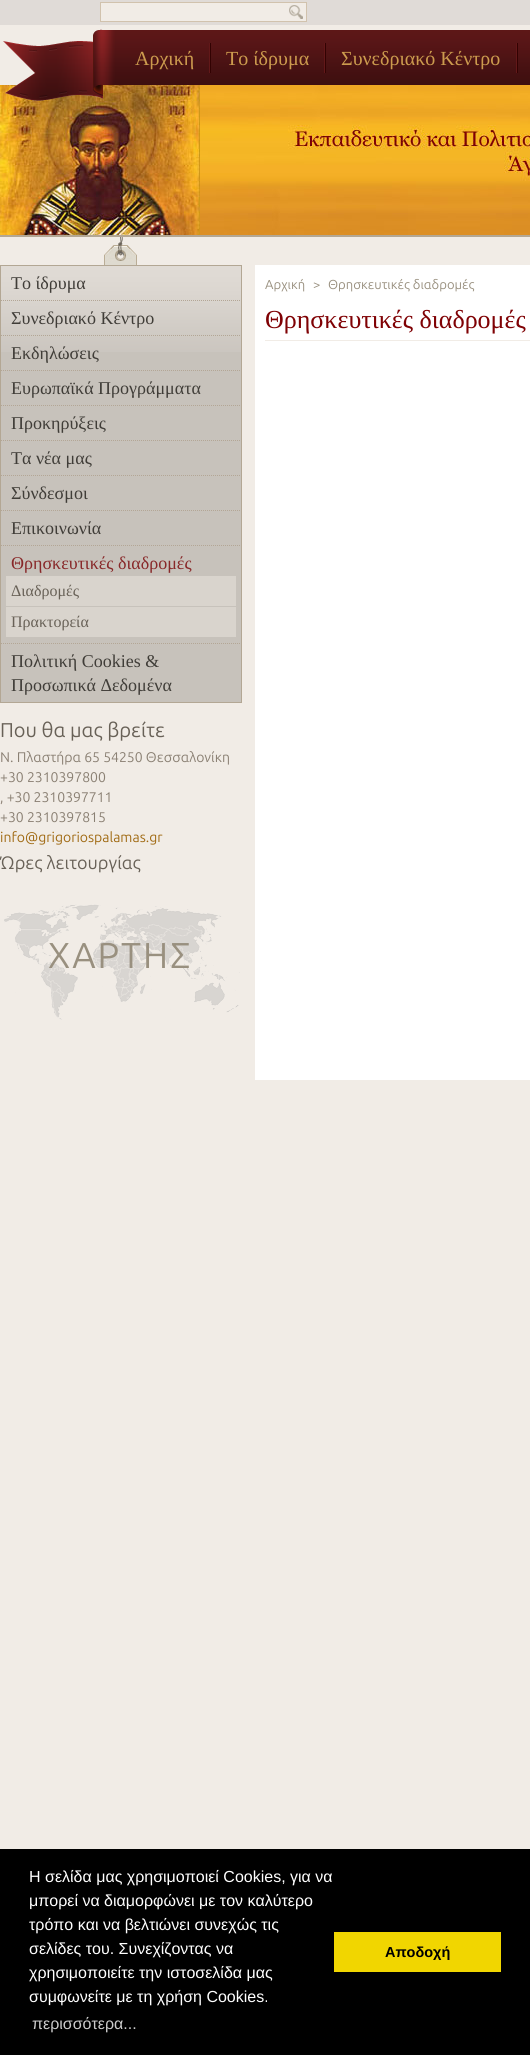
import math
import cairo


def write_spaced(ctx, x, y, s, letter, word):
	ctx.move_to(x, y)
	for ch in s:
		ctx.show_text(ch)
		ctx.rel_move_to(letter + word * (ch == ' '), 0)

def paste(ctx, path, x, y, w, h):
	ctx.save()
	ctx.set_source_surface(cairo.ImageSurface.create_from_png(path), x, y)
	ctx.rectangle(x, y, w, h)
	ctx.fill()
	ctx.restore()

def draw(ctx):
	ctx.set_source_rgb(0.945, 0.925, 0.902)
	ctx.paint()
	ctx.set_source_rgb(0.878, 0.859, 0.843)
	ctx.rectangle(0, 0, 530, 25)
	ctx.fill()
	ctx.set_source_rgb(0.945, 0.925, 0.902)
	ctx.rectangle(100.5, 2.5, 206, 19)
	ctx.fill_preserve()
	ctx.set_source_rgb(0.82, 0.761, 0.678)
	ctx.set_line_width(1)
	ctx.stroke()
	paste(ctx, 'media/1.png', 289, 5, 14, 14)
	paste(ctx, 'media/3.png', 0, 85, 530, 150)
	paste(ctx, 'media/2.png', 3, 29, 527, 72)
	ctx.set_source_rgb(0.384, 0.094, 0.098)
	ctx.rectangle(209, 43, 1, 30)
	ctx.fill()
	ctx.select_font_face('Liberation Serif')
	ctx.set_font_size(20)
	ctx.set_source_rgb(0.8, 0.608, 0.306)
	ctx.move_to(135, 65)
	ctx.show_text('Αρχική')
	ctx.set_source_rgb(0.384, 0.094, 0.098)
	ctx.rectangle(324, 43, 1, 30)
	ctx.fill()
	ctx.set_source_rgb(0.196, 0.008, 0.008)
	ctx.rectangle(210, 43, 1, 30)
	ctx.fill()
	ctx.set_source_rgb(0.8, 0.608, 0.306)
	ctx.move_to(226, 65)
	ctx.show_text('Το ίδρυμα')
	ctx.set_source_rgb(0.384, 0.094, 0.098)
	ctx.rectangle(516, 43, 1, 30)
	ctx.fill()
	ctx.set_source_rgb(0.196, 0.008, 0.008)
	ctx.rectangle(325, 43, 1, 30)
	ctx.fill()
	ctx.set_source_rgb(0.8, 0.608, 0.306)
	ctx.move_to(341, 65)
	ctx.show_text('Συνεδριακό Κέντρο')
	ctx.set_source_rgb(0.196, 0.008, 0.008)
	ctx.rectangle(517, 43, 1, 30)
	ctx.fill()
	ctx.set_source_rgb(0.702, 0.655, 0.58)
	ctx.rectangle(0, 235, 530, 2)
	ctx.fill()
	paste(ctx, 'media/4.png', 104, 237, 33, 28)
	ctx.set_source_rgb(0.78, 0.761, 0.733)
	ctx.rectangle(1, 352, 240, 350)
	ctx.fill()
	paste(ctx, 'media/5.png', 1, 266, 240, 86)
	ctx.rectangle(0.5, 265.5, 241, 437)
	ctx.set_source_rgb(0.702, 0.655, 0.58)
	ctx.stroke()
	ctx.new_path()
	ctx.move_to(1, 300.5)
	ctx.line_to(241, 300.5)
	ctx.set_source_rgb(0.702, 0.651, 0.584)
	ctx.set_dash([1, 1])
	ctx.stroke()
	ctx.set_font_size(18)
	ctx.set_source_rgb(0.251, 0.239, 0.22)
	ctx.move_to(11, 289)
	ctx.show_text('Το ίδρυμα')
	ctx.new_path()
	ctx.move_to(1, 335.5)
	ctx.line_to(241, 335.5)
	ctx.set_source_rgb(0.702, 0.651, 0.584)
	ctx.stroke()
	ctx.set_source_rgb(0.251, 0.239, 0.22)
	ctx.move_to(11, 324)
	ctx.show_text('Συνεδριακό Κέντρο')
	ctx.new_path()
	ctx.move_to(1, 370.5)
	ctx.line_to(241, 370.5)
	ctx.set_source_rgb(0.702, 0.651, 0.584)
	ctx.stroke()
	ctx.set_source_rgb(0.251, 0.239, 0.22)
	ctx.move_to(11, 359)
	ctx.show_text('Εκδηλώσεις')
	ctx.new_path()
	ctx.move_to(1, 405.5)
	ctx.line_to(241, 405.5)
	ctx.set_source_rgb(0.702, 0.651, 0.584)
	ctx.stroke()
	ctx.set_source_rgb(0.251, 0.239, 0.22)
	ctx.move_to(11, 394)
	ctx.show_text('Ευρωπαϊκά Προγράμματα')
	ctx.new_path()
	ctx.move_to(1, 440.5)
	ctx.line_to(241, 440.5)
	ctx.set_source_rgb(0.702, 0.651, 0.584)
	ctx.stroke()
	ctx.set_source_rgb(0.251, 0.239, 0.22)
	ctx.move_to(11, 429)
	ctx.show_text('Προκηρύξεις')
	ctx.new_path()
	ctx.move_to(1, 475.5)
	ctx.line_to(241, 475.5)
	ctx.set_source_rgb(0.702, 0.651, 0.584)
	ctx.stroke()
	ctx.set_source_rgb(0.251, 0.239, 0.22)
	ctx.move_to(11, 464)
	ctx.show_text('Τα νέα μας')
	ctx.new_path()
	ctx.move_to(1, 510.5)
	ctx.line_to(241, 510.5)
	ctx.set_source_rgb(0.702, 0.651, 0.584)
	ctx.stroke()
	ctx.set_source_rgb(0.251, 0.239, 0.22)
	ctx.move_to(11, 499)
	ctx.show_text('Σύνδεσμοι')
	ctx.new_path()
	ctx.move_to(1, 545.5)
	ctx.line_to(241, 545.5)
	ctx.set_source_rgb(0.702, 0.651, 0.584)
	ctx.stroke()
	ctx.set_source_rgb(0.251, 0.239, 0.22)
	ctx.move_to(11, 534)
	ctx.show_text('Επικοινωνία')
	ctx.new_path()
	ctx.move_to(1, 643.5)
	ctx.line_to(241, 643.5)
	ctx.set_source_rgb(0.702, 0.651, 0.584)
	ctx.stroke()
	ctx.set_source_rgb(0.533, 0.157, 0.161)
	ctx.move_to(11, 569)
	ctx.show_text('Θρησκευτικές διαδρομές')
	ctx.set_source_rgb(0.851, 0.831, 0.804)
	ctx.rectangle(6, 576, 230, 30)
	ctx.fill()
	ctx.set_font_size(16)
	ctx.set_source_rgb(0.408, 0.38, 0.341)
	ctx.move_to(11, 596)
	ctx.show_text('Διαδρομές')
	ctx.set_source_rgb(0.851, 0.831, 0.804)
	ctx.rectangle(6, 607, 230, 30)
	ctx.fill()
	ctx.set_source_rgb(0.408, 0.38, 0.341)
	ctx.move_to(11, 627)
	ctx.show_text('Πρακτορεία')
	ctx.set_font_size(18)
	ctx.set_source_rgb(0.251, 0.239, 0.22)
	ctx.move_to(11, 667)
	ctx.show_text('Πολιτική Cookies &')
	ctx.move_to(11, 691)
	ctx.show_text('Προσωπικά Δεδομένα')
	ctx.select_font_face('Ubuntu')
	ctx.set_font_size(20)
	ctx.set_source_rgb(0.408, 0.38, 0.341)
	ctx.move_to(0, 737)
	ctx.show_text('Που θα μας βρείτε')
	ctx.set_font_size(14)
	ctx.set_source_rgb(0.541, 0.502, 0.451)
	for x, y, s in [
		(0, 762, 'Ν. Πλαστήρα 65 54250 Θεσσαλονίκη'),
		(0, 782, '+30 2310397800'),
		(0, 802, ', +30 2310397711'),
		(0, 822, '+30 2310397815'),
	]:
		ctx.move_to(x, y)
		ctx.show_text(s)
	ctx.set_source_rgb(0.627, 0.416, 0.078)
	ctx.move_to(0, 842)
	ctx.show_text('info@grigoriospalamas.gr')
	ctx.set_font_size(18)
	ctx.set_source_rgb(0.408, 0.38, 0.341)
	ctx.move_to(0, 869)
	ctx.show_text('Ώρες λειτουργίας')
	paste(ctx, 'media/6.png', 4, 904, 236, 116)
	ctx.set_font_size(36)
	ctx.set_source_rgb(0.6, 0.565, 0.498)
	write_spaced(ctx, 48, 968, 'ΧΑΡΤΗΣ', 2, 0)
	ctx.set_source_rgb(1, 1, 1)
	ctx.rectangle(255, 265, 275, 815)
	ctx.fill()
	ctx.set_font_size(13)
	ctx.set_source_rgb(0.6, 0.565, 0.498)
	for x, y, s in [
		(265, 289, 'Αρχική'),
		(313, 289, '>'),
		(328, 289, 'Θρησκευτικές διαδρομές'),
	]:
		ctx.move_to(x, y)
		ctx.show_text(s)
	ctx.set_source_rgb(0.945, 0.925, 0.902)
	ctx.rectangle(265, 340, 265, 1)
	ctx.fill()
	ctx.select_font_face('Liberation Serif')
	ctx.set_font_size(26)
	ctx.set_source_rgb(0.498, 0.004, 0.016)
	ctx.move_to(265, 328)
	ctx.show_text('Θρησκευτικές διαδρομές')
	ctx.set_source_rgb(0, 0, 0)
	ctx.rectangle(0, 1849, 530, 206)
	ctx.fill()
	ctx.select_font_face('Liberation Sans')
	ctx.set_font_size(16)
	ctx.set_source_rgb(1, 1, 1)
	for x, y, s in [
		(29, 1882, 'Η σελίδα μας χρησιμοποιεί Cookies, για να'),
		(29, 1906, 'μπορεί να διαμορφώνει με τον καλύτερο'),
		(29, 1930, 'τρόπο και να βελτιώνει συνεχώς τις'),
		(29, 1954, 'σελίδες του. Συνεχίζοντας να'),
		(29, 1978, 'χρησιμοποιείτε την ιστοσελίδα μας'),
		(29, 2002, 'συμφωνείτε με τη χρήση Cookies.'),
	]:
		ctx.move_to(x, y)
		ctx.show_text(s)
	ctx.set_source_rgb(0.8, 0.8, 0.8)
	ctx.move_to(32, 2029)
	ctx.show_text('περισσότερα...')
	ctx.set_source_rgb(0.945, 0.839, 0)
	ctx.rectangle(334, 1932, 167, 40)
	ctx.fill()
	ctx.select_font_face('Liberation Sans', cairo.FONT_SLANT_NORMAL, cairo.FONT_WEIGHT_BOLD)
	ctx.set_font_size(14.5)
	ctx.set_source_rgb(0, 0, 0)
	ctx.move_to(385, 1957)
	ctx.show_text('Αποδοχή')


surface = cairo.ImageSurface(cairo.FORMAT_RGB24, 530, 2055)
ctx = cairo.Context(surface)
options = cairo.FontOptions()
options.set_hint_metrics(cairo.HINT_METRICS_OFF)
options.set_hint_style(cairo.HINT_STYLE_NONE)
ctx.set_font_options(options)
ctx.set_miter_limit(4)
draw(ctx)
surface.write_to_png('image.png')
